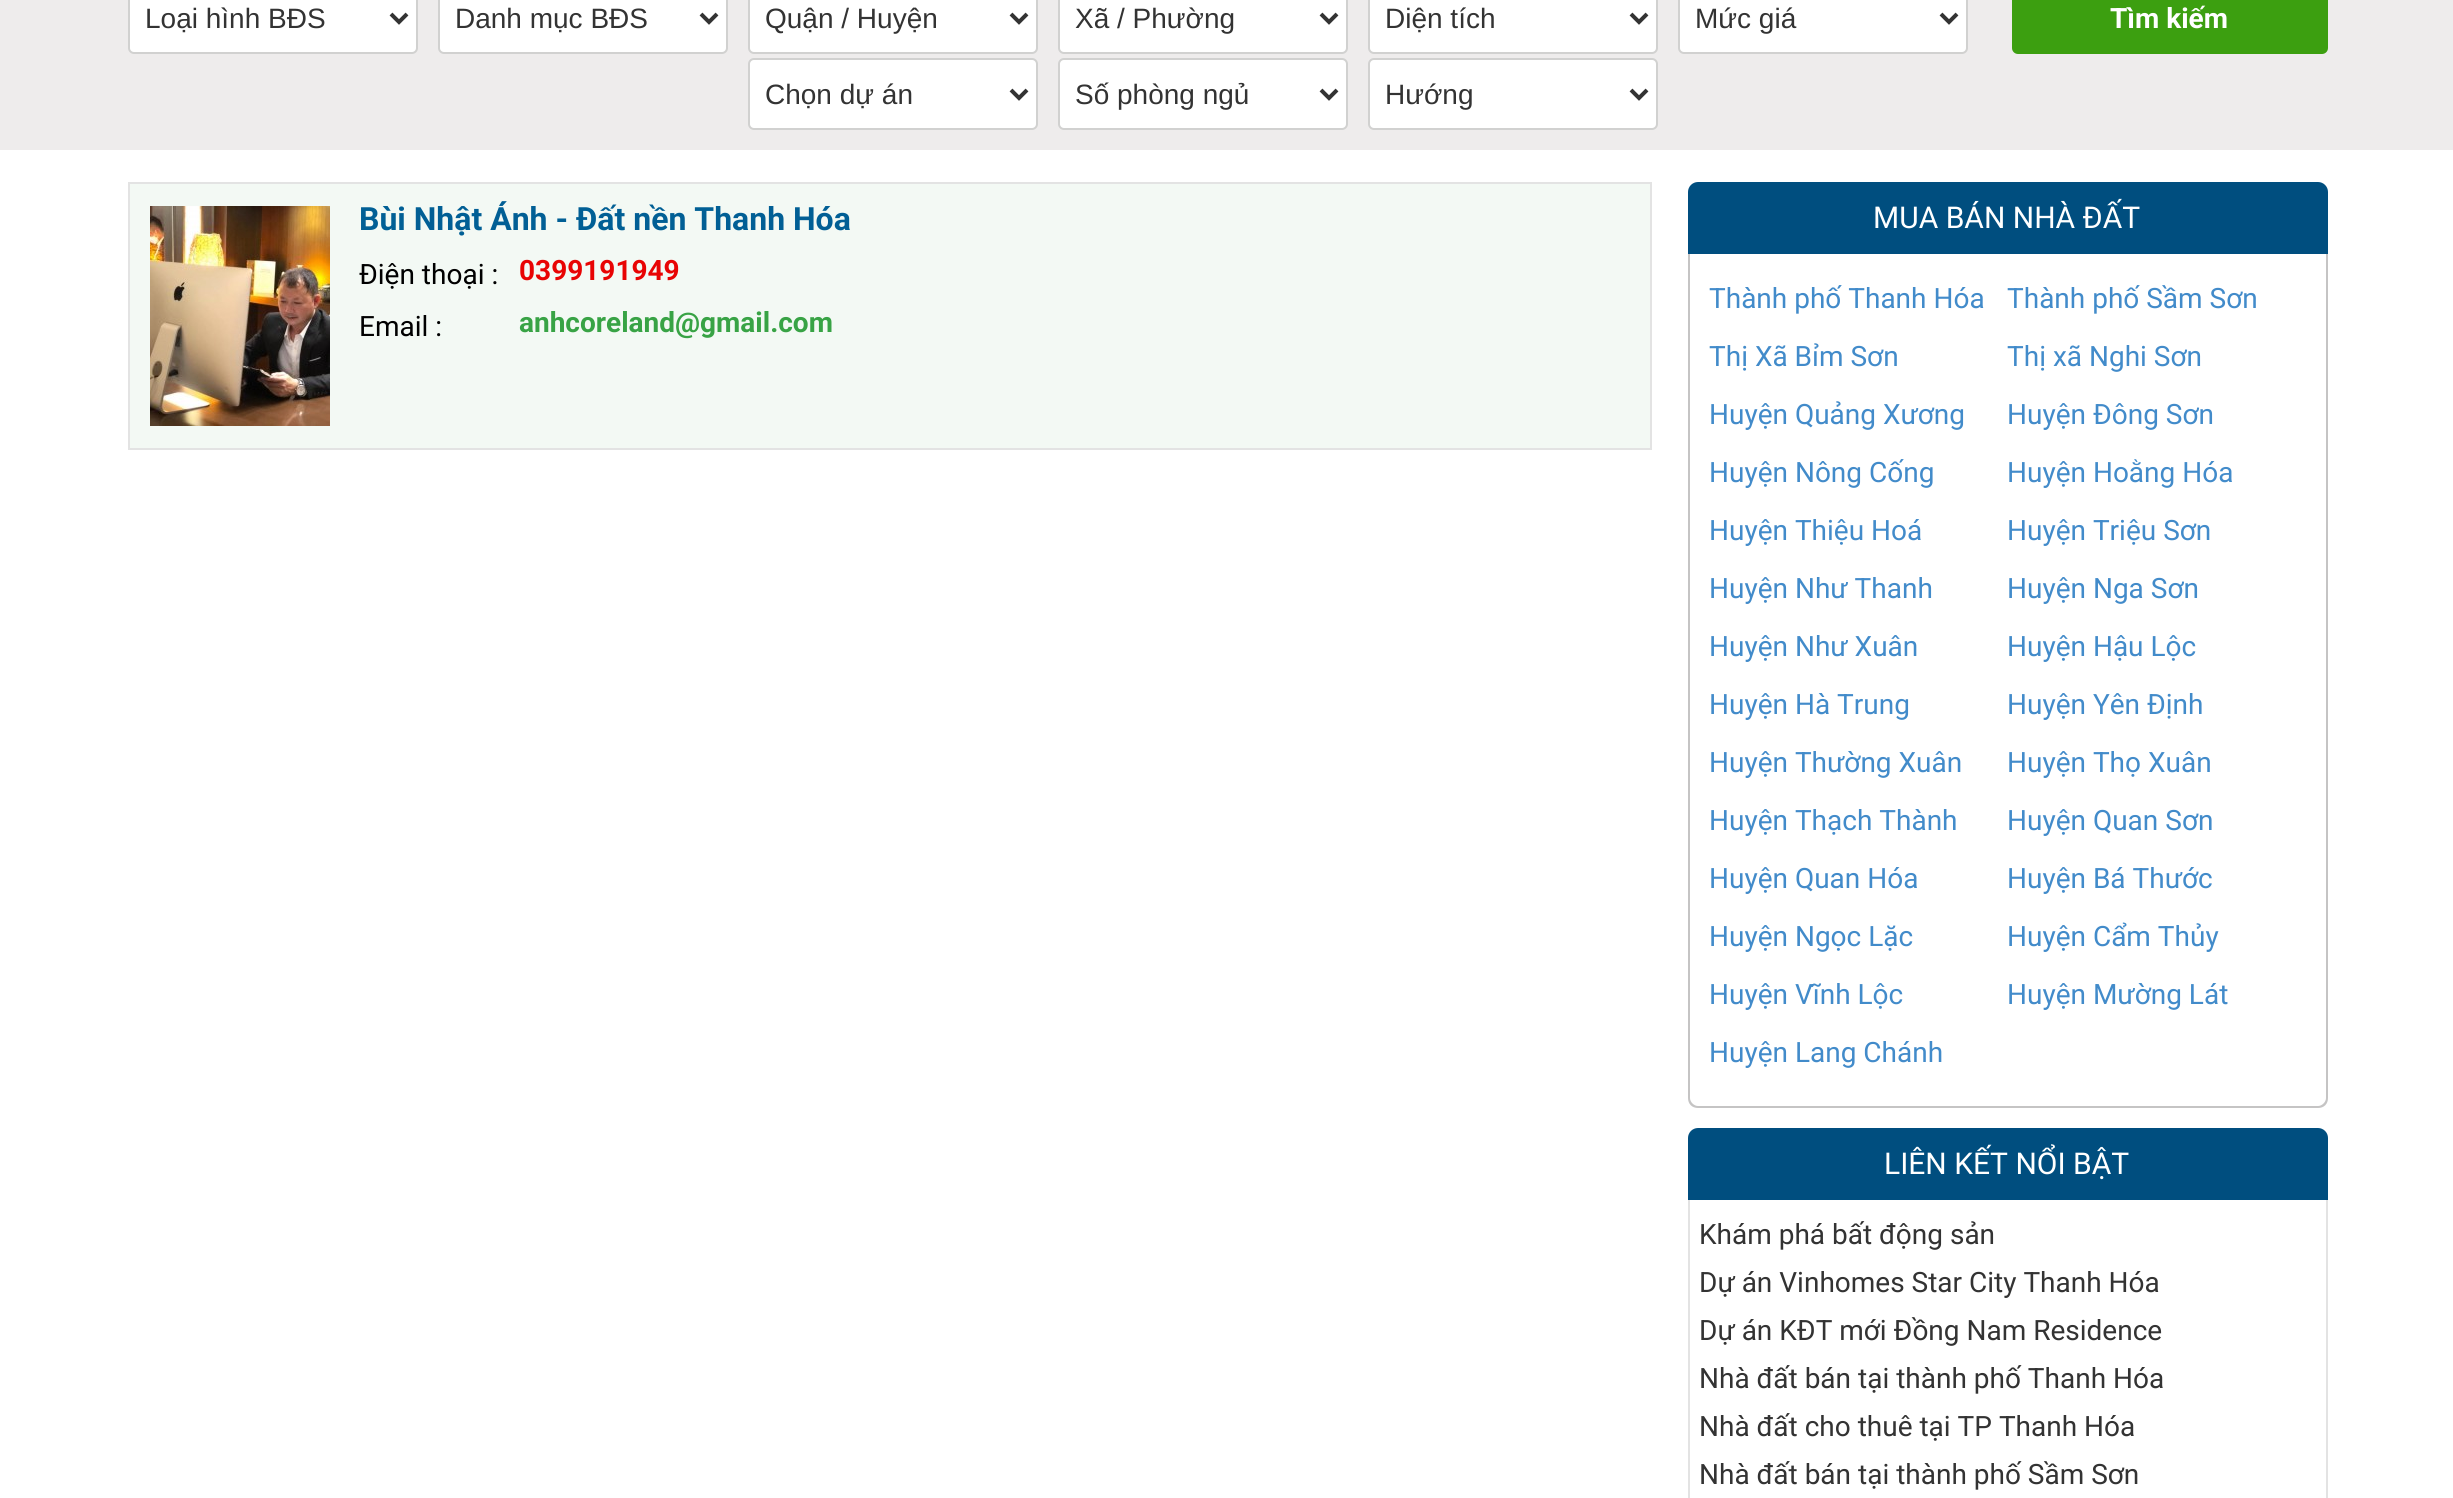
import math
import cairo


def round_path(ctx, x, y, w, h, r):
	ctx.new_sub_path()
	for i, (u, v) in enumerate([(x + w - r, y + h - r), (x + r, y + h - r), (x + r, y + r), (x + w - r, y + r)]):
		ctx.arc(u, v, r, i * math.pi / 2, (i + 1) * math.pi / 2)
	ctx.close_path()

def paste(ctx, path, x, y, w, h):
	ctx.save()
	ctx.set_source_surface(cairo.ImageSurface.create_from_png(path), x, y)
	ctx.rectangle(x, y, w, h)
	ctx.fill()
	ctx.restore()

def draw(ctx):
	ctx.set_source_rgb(1, 1, 1)
	ctx.paint()
	ctx.set_source_rgb(0.933, 0.925, 0.925)
	ctx.rectangle(0, 0, 2453, 150)
	ctx.fill()
	ctx.set_source_rgb(1, 1, 1)
	round_path(ctx, 129, -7, 288, 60, 5)
	ctx.fill_preserve()
	ctx.set_source_rgb(0.82, 0.82, 0.816)
	ctx.stroke()
	ctx.new_path()
	ctx.move_to(391, 14)
	ctx.line_to(399, 22)
	ctx.line_to(407, 14)
	ctx.set_source_rgb(0.2, 0.2, 0.2)
	ctx.set_line_width(4)
	ctx.stroke()
	ctx.select_font_face('Liberation Sans')
	ctx.set_font_size(28)
	ctx.move_to(145, 28)
	ctx.show_text('Loại hình BĐS')
	ctx.set_source_rgb(1, 1, 1)
	round_path(ctx, 439, -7, 288, 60, 5)
	ctx.fill_preserve()
	ctx.set_source_rgb(0.82, 0.82, 0.816)
	ctx.set_line_width(2)
	ctx.stroke()
	ctx.new_path()
	ctx.move_to(701, 14)
	ctx.line_to(709, 22)
	ctx.line_to(717, 14)
	ctx.set_source_rgb(0.2, 0.2, 0.2)
	ctx.set_line_width(4)
	ctx.stroke()
	ctx.move_to(455, 28)
	ctx.show_text('Danh mục BĐS')
	ctx.set_source_rgb(1, 1, 1)
	round_path(ctx, 749, -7, 288, 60, 5)
	ctx.fill_preserve()
	ctx.set_source_rgb(0.82, 0.82, 0.816)
	ctx.set_line_width(2)
	ctx.stroke()
	ctx.new_path()
	ctx.move_to(1011, 14)
	ctx.line_to(1019, 22)
	ctx.line_to(1027, 14)
	ctx.set_source_rgb(0.2, 0.2, 0.2)
	ctx.set_line_width(4)
	ctx.stroke()
	ctx.move_to(765, 28)
	ctx.show_text('Quận / Huyện')
	ctx.set_source_rgb(1, 1, 1)
	round_path(ctx, 1059, -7, 288, 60, 5)
	ctx.fill_preserve()
	ctx.set_source_rgb(0.82, 0.82, 0.816)
	ctx.set_line_width(2)
	ctx.stroke()
	ctx.new_path()
	ctx.move_to(1321, 14)
	ctx.line_to(1329, 22)
	ctx.line_to(1337, 14)
	ctx.set_source_rgb(0.2, 0.2, 0.2)
	ctx.set_line_width(4)
	ctx.stroke()
	ctx.move_to(1075, 28)
	ctx.show_text('Xã / Phường')
	ctx.set_source_rgb(1, 1, 1)
	round_path(ctx, 1369, -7, 288, 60, 5)
	ctx.fill_preserve()
	ctx.set_source_rgb(0.82, 0.82, 0.816)
	ctx.set_line_width(2)
	ctx.stroke()
	ctx.new_path()
	ctx.move_to(1631, 14)
	ctx.line_to(1639, 22)
	ctx.line_to(1647, 14)
	ctx.set_source_rgb(0.2, 0.2, 0.2)
	ctx.set_line_width(4)
	ctx.stroke()
	ctx.move_to(1385, 28)
	ctx.show_text('Diện tích')
	ctx.set_source_rgb(1, 1, 1)
	round_path(ctx, 1679, -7, 288, 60, 5)
	ctx.fill_preserve()
	ctx.set_source_rgb(0.82, 0.82, 0.816)
	ctx.set_line_width(2)
	ctx.stroke()
	ctx.new_path()
	ctx.move_to(1941, 14)
	ctx.line_to(1949, 22)
	ctx.line_to(1957, 14)
	ctx.set_source_rgb(0.2, 0.2, 0.2)
	ctx.set_line_width(4)
	ctx.stroke()
	ctx.move_to(1695, 28)
	ctx.show_text('Mức giá')
	ctx.set_source_rgb(0.235, 0.624, 0.063)
	round_path(ctx, 2012, -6, 316, 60, 6)
	ctx.fill()
	ctx.select_font_face('Roboto', cairo.FONT_SLANT_NORMAL, cairo.FONT_WEIGHT_BOLD)
	ctx.set_source_rgb(1, 1, 1)
	ctx.move_to(2110, 28)
	ctx.show_text('Tìm kiếm')
	round_path(ctx, 749, 59, 288, 70, 5)
	ctx.fill_preserve()
	ctx.set_source_rgb(0.82, 0.82, 0.816)
	ctx.set_line_width(2)
	ctx.stroke()
	ctx.new_path()
	ctx.move_to(1011, 90)
	ctx.line_to(1019, 98)
	ctx.line_to(1027, 90)
	ctx.set_source_rgb(0.2, 0.2, 0.2)
	ctx.set_line_width(4)
	ctx.stroke()
	ctx.select_font_face('Liberation Sans')
	ctx.move_to(765, 104)
	ctx.show_text('Chọn dự án')
	ctx.set_source_rgb(1, 1, 1)
	round_path(ctx, 1059, 59, 288, 70, 5)
	ctx.fill_preserve()
	ctx.set_source_rgb(0.82, 0.82, 0.816)
	ctx.set_line_width(2)
	ctx.stroke()
	ctx.new_path()
	ctx.move_to(1321, 90)
	ctx.line_to(1329, 98)
	ctx.line_to(1337, 90)
	ctx.set_source_rgb(0.2, 0.2, 0.2)
	ctx.set_line_width(4)
	ctx.stroke()
	ctx.move_to(1075, 104)
	ctx.show_text('Số phòng ngủ')
	ctx.set_source_rgb(1, 1, 1)
	round_path(ctx, 1369, 59, 288, 70, 5)
	ctx.fill_preserve()
	ctx.set_source_rgb(0.82, 0.82, 0.816)
	ctx.set_line_width(2)
	ctx.stroke()
	ctx.new_path()
	ctx.move_to(1631, 90)
	ctx.line_to(1639, 98)
	ctx.line_to(1647, 90)
	ctx.set_source_rgb(0.2, 0.2, 0.2)
	ctx.set_line_width(4)
	ctx.stroke()
	ctx.move_to(1385, 104)
	ctx.show_text('Hướng')
	ctx.set_source_rgb(0.953, 0.976, 0.957)
	ctx.rectangle(129, 183, 1522, 266)
	ctx.fill_preserve()
	ctx.set_source_rgb(0.89, 0.89, 0.89)
	ctx.set_line_width(2)
	ctx.stroke()
	paste(ctx, 'media/1.png', 150, 206, 180, 220)
	ctx.select_font_face('Roboto', cairo.FONT_SLANT_NORMAL, cairo.FONT_WEIGHT_BOLD)
	ctx.set_font_size(32)
	ctx.set_source_rgb(0.004, 0.373, 0.584)
	ctx.move_to(359, 230)
	ctx.show_text('Bùi Nhật Ánh - Đất nền Thanh Hóa')
	ctx.select_font_face('Roboto')
	ctx.set_font_size(28)
	ctx.set_source_rgb(0, 0, 0)
	ctx.move_to(359, 284)
	ctx.show_text('Điện thoại :')
	ctx.select_font_face('Roboto', cairo.FONT_SLANT_NORMAL, cairo.FONT_WEIGHT_BOLD)
	ctx.set_source_rgb(0.91, 0.016, 0.016)
	ctx.move_to(519, 280)
	ctx.show_text('0399191949')
	ctx.select_font_face('Roboto')
	ctx.set_source_rgb(0, 0, 0)
	ctx.move_to(359, 336)
	ctx.show_text('Email :')
	ctx.select_font_face('Roboto', cairo.FONT_SLANT_NORMAL, cairo.FONT_WEIGHT_BOLD)
	ctx.set_source_rgb(0.22, 0.639, 0.271)
	ctx.move_to(519, 332)
	ctx.show_text('anhcoreland@gmail.com')
	ctx.set_source_rgb(0, 0.306, 0.498)
	ctx.new_path()
	ctx.move_to(1698, 182)
	ctx.line_to(2318, 182)
	ctx.curve_to(2323.5, 182, 2328, 186.5, 2328, 192)
	ctx.line_to(2328, 254)
	ctx.line_to(1688, 254)
	ctx.line_to(1688, 192)
	ctx.curve_to(1688, 186.5, 1692.5, 182, 1698, 182)
	ctx.close_path()
	ctx.fill()
	ctx.select_font_face('Roboto')
	ctx.set_font_size(30)
	ctx.set_source_rgb(1, 1, 1)
	ctx.move_to(1873, 228)
	ctx.show_text('MUA BÁN NHÀ ĐẤT')
	ctx.set_source_rgb(0.773, 0.769, 0.769)
	ctx.set_fill_rule(cairo.FILL_RULE_EVEN_ODD)
	ctx.new_path()
	ctx.move_to(1688, 254)
	ctx.line_to(2328, 254)
	ctx.line_to(2328, 1098)
	ctx.curve_to(2328, 1104, 2324, 1108, 2318, 1108)
	ctx.line_to(1698, 1108)
	ctx.curve_to(1692, 1108, 1688, 1104, 1688, 1098)
	ctx.close_path()
	ctx.move_to(1690, 254)
	ctx.line_to(2326, 254)
	ctx.line_to(2326, 1098)
	ctx.curve_to(2326, 1102, 2322, 1106, 2318, 1106)
	ctx.line_to(1698, 1106)
	ctx.curve_to(1694, 1106, 1690, 1102, 1690, 1098)
	ctx.close_path()
	ctx.fill()
	ctx.set_font_size(28)
	ctx.set_source_rgb(0.259, 0.545, 0.792)
	for x, y, s in [
		(1709, 308, 'Thành phố Thanh Hóa'),
		(2007, 308, 'Thành phố Sầm Sơn'),
		(1709, 366, 'Thị Xã Bỉm Sơn'),
		(2007, 366, 'Thị xã Nghi Sơn'),
		(1709, 424, 'Huyện Quảng Xương'),
		(2007, 424, 'Huyện Đông Sơn'),
		(1709, 482, 'Huyện Nông Cống'),
		(2007, 482, 'Huyện Hoằng Hóa'),
		(1709, 540, 'Huyện Thiệu Hoá'),
		(2007, 540, 'Huyện Triệu Sơn'),
		(1709, 598, 'Huyện Như Thanh'),
		(2007, 598, 'Huyện Nga Sơn'),
		(1709, 656, 'Huyện Như Xuân'),
		(2007, 656, 'Huyện Hậu Lộc'),
		(1709, 714, 'Huyện Hà Trung'),
		(2007, 714, 'Huyện Yên Định'),
		(1709, 772, 'Huyện Thường Xuân'),
		(2007, 772, 'Huyện Thọ Xuân'),
		(1709, 830, 'Huyện Thạch Thành'),
		(2007, 830, 'Huyện Quan Sơn'),
		(1709, 888, 'Huyện Quan Hóa'),
		(2007, 888, 'Huyện Bá Thước'),
		(1709, 946, 'Huyện Ngọc Lặc'),
		(2007, 946, 'Huyện Cẩm Thủy'),
		(1709, 1004, 'Huyện Vĩnh Lộc'),
		(2007, 1004, 'Huyện Mường Lát'),
		(1709, 1062, 'Huyện Lang Chánh'),
	]:
		ctx.move_to(x, y)
		ctx.show_text(s)
	ctx.set_source_rgb(0, 0.306, 0.498)
	ctx.new_path()
	ctx.move_to(1698, 1128)
	ctx.line_to(2318, 1128)
	ctx.curve_to(2323.5, 1128, 2328, 1132.5, 2328, 1138)
	ctx.line_to(2328, 1200)
	ctx.line_to(1688, 1200)
	ctx.line_to(1688, 1138)
	ctx.curve_to(1688, 1132.5, 1692.5, 1128, 1698, 1128)
	ctx.close_path()
	ctx.fill()
	ctx.set_font_size(30)
	ctx.set_source_rgb(1, 1, 1)
	ctx.move_to(1884, 1174)
	ctx.show_text('LIÊN KẾT NỔI BẬT')
	ctx.set_source_rgb(0.89, 0.89, 0.89)
	ctx.rectangle(2326, 1200, 2, 298)
	ctx.fill()
	ctx.rectangle(1688, 1200, 2, 298)
	ctx.fill()
	ctx.set_font_size(28)
	ctx.set_source_rgb(0.2, 0.2, 0.2)
	for x, y, s in [
		(1699, 1244, 'Khám phá bất động sản'),
		(1699, 1292, 'Dự án Vinhomes Star City Thanh Hóa'),
		(1699, 1340, 'Dự án KĐT mới Đồng Nam Residence'),
		(1699, 1388, 'Nhà đất bán tại thành phố Thanh Hóa'),
		(1699, 1436, 'Nhà đất cho thuê tại TP Thanh Hóa'),
		(1699, 1484, 'Nhà đất bán tại thành phố Sầm Sơn'),
	]:
		ctx.move_to(x, y)
		ctx.show_text(s)


surface = cairo.ImageSurface(cairo.FORMAT_RGB24, 2453, 1498)
ctx = cairo.Context(surface)
options = cairo.FontOptions()
options.set_hint_metrics(cairo.HINT_METRICS_OFF)
options.set_hint_style(cairo.HINT_STYLE_NONE)
ctx.set_font_options(options)
ctx.set_miter_limit(4)
draw(ctx)
surface.write_to_png('image.png')
